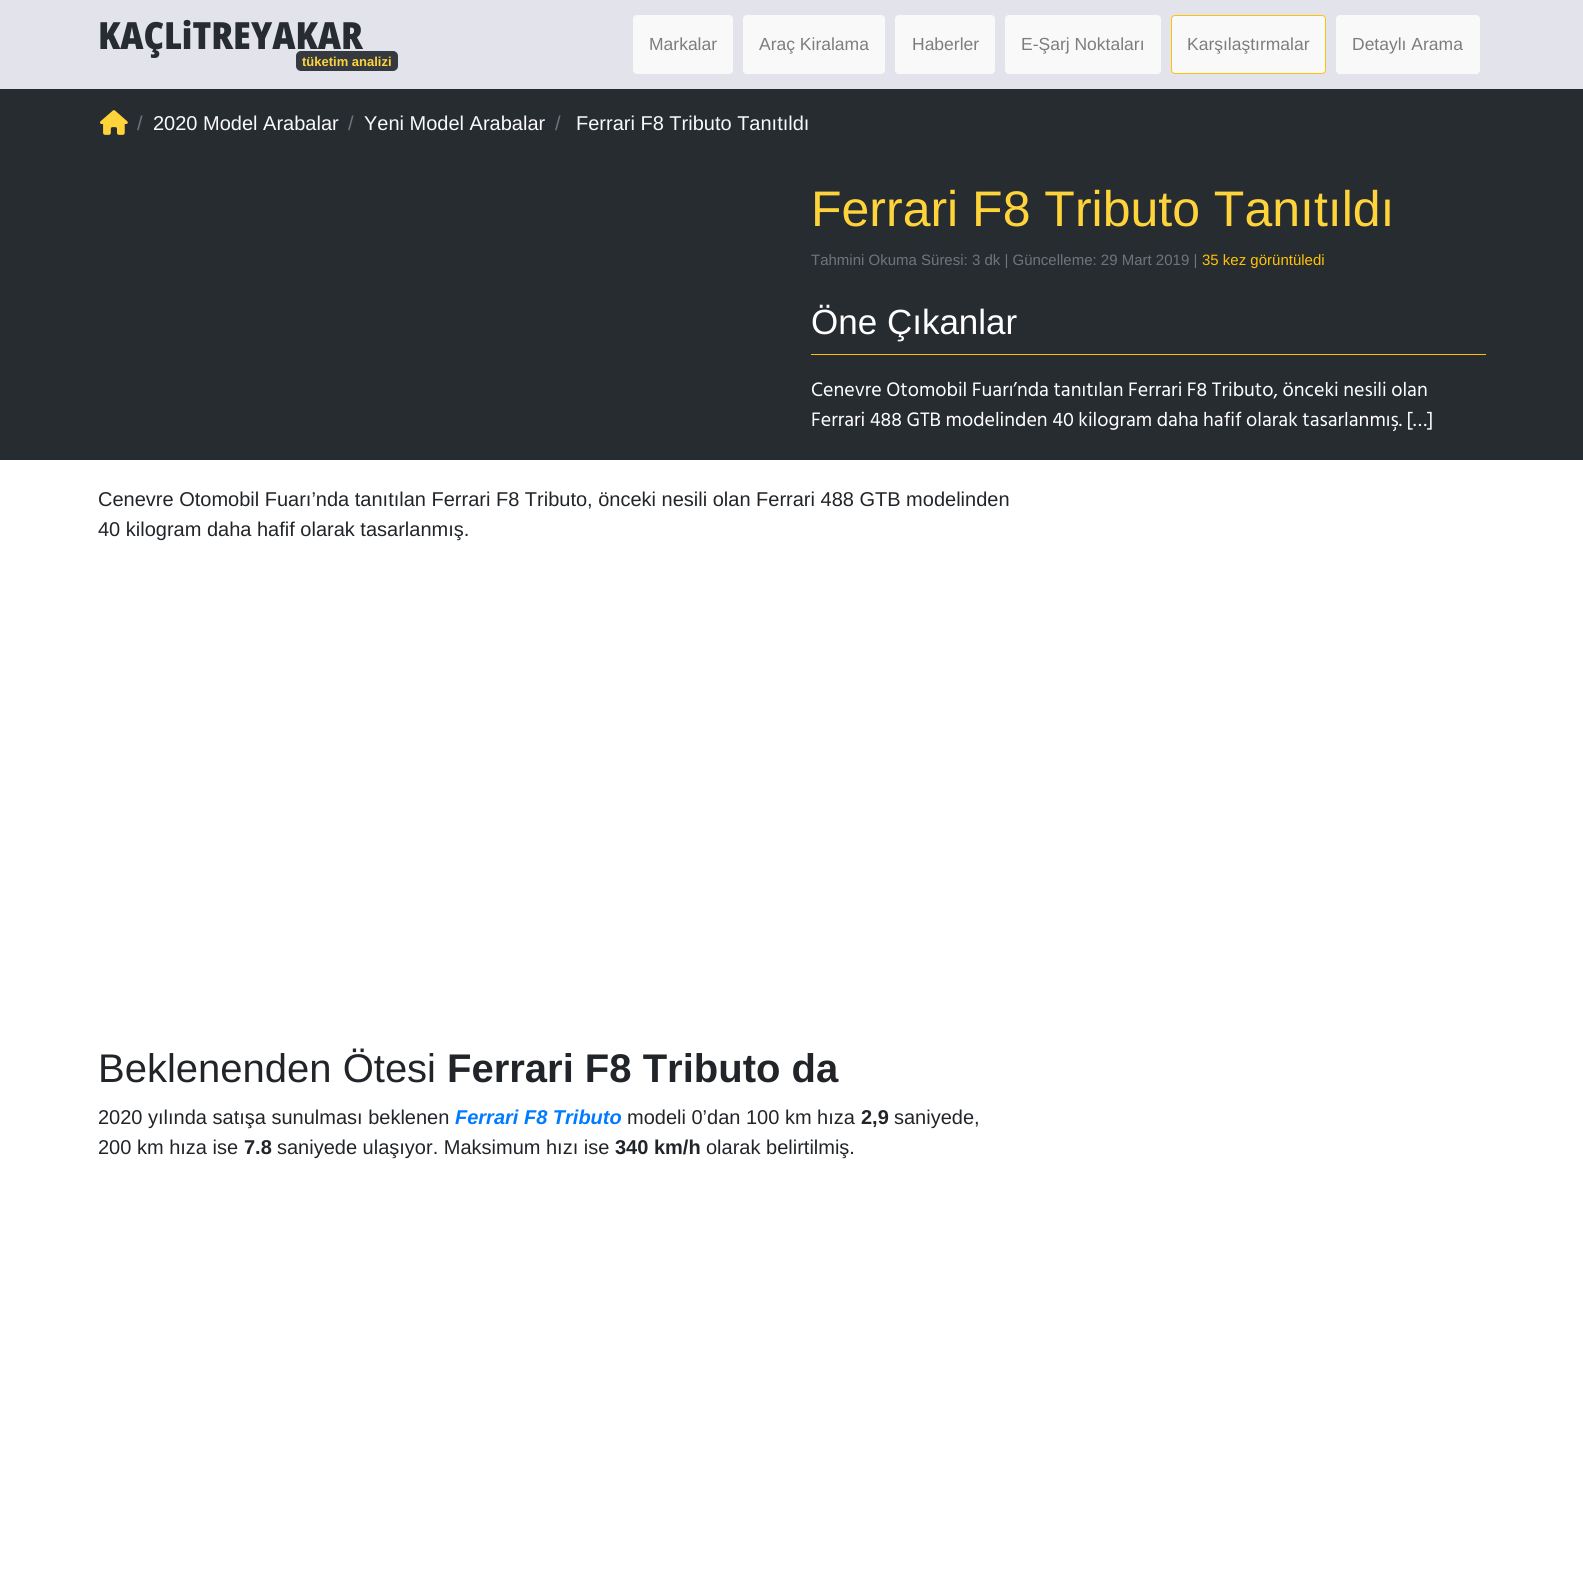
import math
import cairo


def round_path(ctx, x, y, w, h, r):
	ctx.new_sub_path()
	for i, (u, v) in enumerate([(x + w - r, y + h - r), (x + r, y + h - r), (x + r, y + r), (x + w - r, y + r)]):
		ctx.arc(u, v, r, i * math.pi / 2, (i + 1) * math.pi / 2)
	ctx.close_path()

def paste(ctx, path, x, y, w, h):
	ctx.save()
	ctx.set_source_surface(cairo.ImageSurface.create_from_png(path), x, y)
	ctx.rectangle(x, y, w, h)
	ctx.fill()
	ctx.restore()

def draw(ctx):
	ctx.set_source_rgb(0.89, 0.89, 0.922)
	ctx.paint()
	ctx.select_font_face('Noto Sans Black')
	ctx.set_font_size(37.5)
	ctx.set_source_rgb(0.153, 0.173, 0.192)
	ctx.move_to(98, 49)
	ctx.show_text('KAÇLiTREYAKAR')
	ctx.set_source_rgb(0.204, 0.227, 0.251)
	round_path(ctx, 296, 51, 102, 20, 5)
	ctx.fill()
	ctx.select_font_face('Liberation Sans', cairo.FONT_SLANT_NORMAL, cairo.FONT_WEIGHT_BOLD)
	ctx.set_font_size(13)
	ctx.set_source_rgb(1, 0.831, 0.231)
	ctx.move_to(302, 66)
	ctx.show_text('tüketim analizi')
	ctx.set_source_rgb(0.973, 0.976, 0.98)
	round_path(ctx, 633.5, 15.5, 99, 58, 3.5)
	ctx.fill_preserve()
	ctx.set_line_width(1)
	ctx.stroke()
	ctx.select_font_face('Liberation Sans')
	ctx.set_font_size(17.5)
	ctx.set_source_rgb(0.486, 0.49, 0.49)
	ctx.move_to(649, 50)
	ctx.show_text('Markalar')
	ctx.set_source_rgb(0.973, 0.976, 0.98)
	round_path(ctx, 743.5, 15.5, 141, 58, 3.5)
	ctx.fill_preserve()
	ctx.stroke()
	ctx.set_source_rgb(0.486, 0.49, 0.49)
	ctx.move_to(759, 50)
	ctx.show_text('Araç Kiralama')
	ctx.set_source_rgb(0.973, 0.976, 0.98)
	round_path(ctx, 895.5, 15.5, 99, 58, 3.5)
	ctx.fill_preserve()
	ctx.stroke()
	ctx.set_source_rgb(0.486, 0.49, 0.49)
	ctx.move_to(912, 50)
	ctx.show_text('Haberler')
	ctx.set_source_rgb(0.973, 0.976, 0.98)
	round_path(ctx, 1005.5, 15.5, 155, 58, 3.5)
	ctx.fill_preserve()
	ctx.stroke()
	ctx.set_source_rgb(0.486, 0.49, 0.49)
	ctx.move_to(1021, 50)
	ctx.show_text('E-Şarj Noktaları')
	ctx.set_source_rgb(0.973, 0.976, 0.98)
	round_path(ctx, 1171.5, 15.5, 154, 58, 3.5)
	ctx.fill_preserve()
	ctx.set_source_rgb(1, 0.757, 0.027)
	ctx.stroke()
	ctx.set_source_rgb(0.486, 0.49, 0.49)
	ctx.move_to(1187, 50)
	ctx.show_text('Karşılaştırmalar')
	ctx.set_source_rgb(0.973, 0.976, 0.98)
	round_path(ctx, 1336.5, 15.5, 143, 58, 3.5)
	ctx.fill_preserve()
	ctx.stroke()
	ctx.set_source_rgb(0.486, 0.49, 0.49)
	ctx.move_to(1352, 50)
	ctx.show_text('Detaylı Arama')
	ctx.set_source_rgb(0.153, 0.173, 0.192)
	ctx.rectangle(0, 89, 1583, 371)
	ctx.fill()
	paste(ctx, 'media/1.png', 100, 110, 28, 25)
	ctx.set_font_size(20)
	ctx.set_source_rgb(0.424, 0.459, 0.49)
	ctx.move_to(137, 130)
	ctx.show_text('/')
	ctx.set_source_rgb(0.973, 0.976, 0.98)
	ctx.move_to(153, 130)
	ctx.show_text('2020 Model Arabalar')
	ctx.set_source_rgb(0.424, 0.459, 0.49)
	ctx.move_to(348, 130)
	ctx.show_text('/')
	ctx.set_source_rgb(0.973, 0.976, 0.98)
	ctx.move_to(364, 130)
	ctx.show_text('Yeni Model Arabalar')
	ctx.set_source_rgb(0.424, 0.459, 0.49)
	ctx.move_to(555, 130)
	ctx.show_text('/')
	ctx.set_source_rgb(0.973, 0.976, 0.98)
	ctx.move_to(576, 130)
	ctx.show_text('Ferrari F8 Tributo Tanıtıldı')
	ctx.set_font_size(50)
	ctx.set_source_rgb(1, 0.831, 0.231)
	ctx.move_to(811, 226)
	ctx.show_text('Ferrari F8 Tributo Tanıtıldı')
	ctx.set_font_size(15)
	ctx.set_source_rgb(0.424, 0.459, 0.49)
	ctx.move_to(811, 265)
	ctx.show_text('Tahmini Okuma Süresi: 3 dk | Güncelleme: 29 Mart 2019 |')
	ctx.set_source_rgb(1, 0.757, 0.027)
	ctx.move_to(1202, 265)
	ctx.show_text('35 kez görüntüledi')
	ctx.rectangle(811, 354, 675, 1)
	ctx.fill()
	ctx.set_font_size(35)
	ctx.set_source_rgb(1, 1, 1)
	ctx.move_to(811, 334)
	ctx.show_text('Öne Çıkanlar')
	ctx.select_font_face('Hind Siliguri')
	ctx.set_font_size(20)
	ctx.move_to(811, 396)
	ctx.show_text('Cenevre Otomobil Fuarı’nda tanıtılan Ferrari F8 Tributo, önceki nesili olan')
	ctx.move_to(811, 426)
	ctx.show_text('Ferrari 488 GTB modelinden 40 kilogram daha hafif olarak tasarlanmış. […]')
	ctx.rectangle(0, 460, 1583, 1135)
	ctx.fill()
	ctx.select_font_face('Liberation Sans')
	ctx.set_source_rgb(0.129, 0.145, 0.161)
	ctx.move_to(98, 506)
	ctx.show_text('Cenevre Otomobil Fuarı’nda tanıtılan Ferrari F8 Tributo, önceki nesili olan Ferrari 488 GTB modelinden')
	ctx.move_to(98, 536)
	ctx.show_text('40 kilogram daha hafif olarak tasarlanmış.')
	ctx.set_font_size(40)
	ctx.move_to(98, 1082)
	ctx.show_text('Beklenenden Ötesi')
	ctx.select_font_face('Liberation Sans', cairo.FONT_SLANT_NORMAL, cairo.FONT_WEIGHT_BOLD)
	ctx.move_to(447, 1082)
	ctx.show_text('Ferrari F8 Tributo da')
	ctx.select_font_face('Liberation Sans')
	ctx.set_font_size(20)
	ctx.move_to(98, 1124)
	ctx.show_text('2020 yılında satışa sunulması beklenen')
	ctx.select_font_face('Liberation Sans', cairo.FONT_SLANT_ITALIC, cairo.FONT_WEIGHT_BOLD)
	ctx.set_source_rgb(0, 0.482, 1)
	ctx.move_to(455, 1124)
	ctx.show_text('Ferrari F8 Tributo')
	ctx.select_font_face('Liberation Sans')
	ctx.set_source_rgb(0.129, 0.145, 0.161)
	ctx.move_to(627, 1124)
	ctx.show_text('modeli 0’dan 100 km hıza')
	ctx.select_font_face('Liberation Sans', cairo.FONT_SLANT_NORMAL, cairo.FONT_WEIGHT_BOLD)
	ctx.move_to(861, 1124)
	ctx.show_text('2,9')
	ctx.select_font_face('Liberation Sans')
	ctx.move_to(894, 1124)
	ctx.show_text('saniyede,')
	ctx.move_to(98, 1154)
	ctx.show_text('200 km hıza ise')
	ctx.select_font_face('Liberation Sans', cairo.FONT_SLANT_NORMAL, cairo.FONT_WEIGHT_BOLD)
	ctx.move_to(244, 1154)
	ctx.show_text('7.8')
	ctx.select_font_face('Liberation Sans')
	ctx.move_to(277, 1154)
	ctx.show_text('saniyede ulaşıyor. Maksimum hızı ise')
	ctx.select_font_face('Liberation Sans', cairo.FONT_SLANT_NORMAL, cairo.FONT_WEIGHT_BOLD)
	ctx.move_to(615, 1154)
	ctx.show_text('340 km/h')
	ctx.select_font_face('Liberation Sans')
	ctx.move_to(706, 1154)
	ctx.show_text('olarak belirtilmiş.')


surface = cairo.ImageSurface(cairo.FORMAT_RGB24, 1583, 1595)
ctx = cairo.Context(surface)
options = cairo.FontOptions()
options.set_hint_metrics(cairo.HINT_METRICS_OFF)
options.set_hint_style(cairo.HINT_STYLE_NONE)
ctx.set_font_options(options)
ctx.set_miter_limit(4)
draw(ctx)
surface.write_to_png('image.png')
